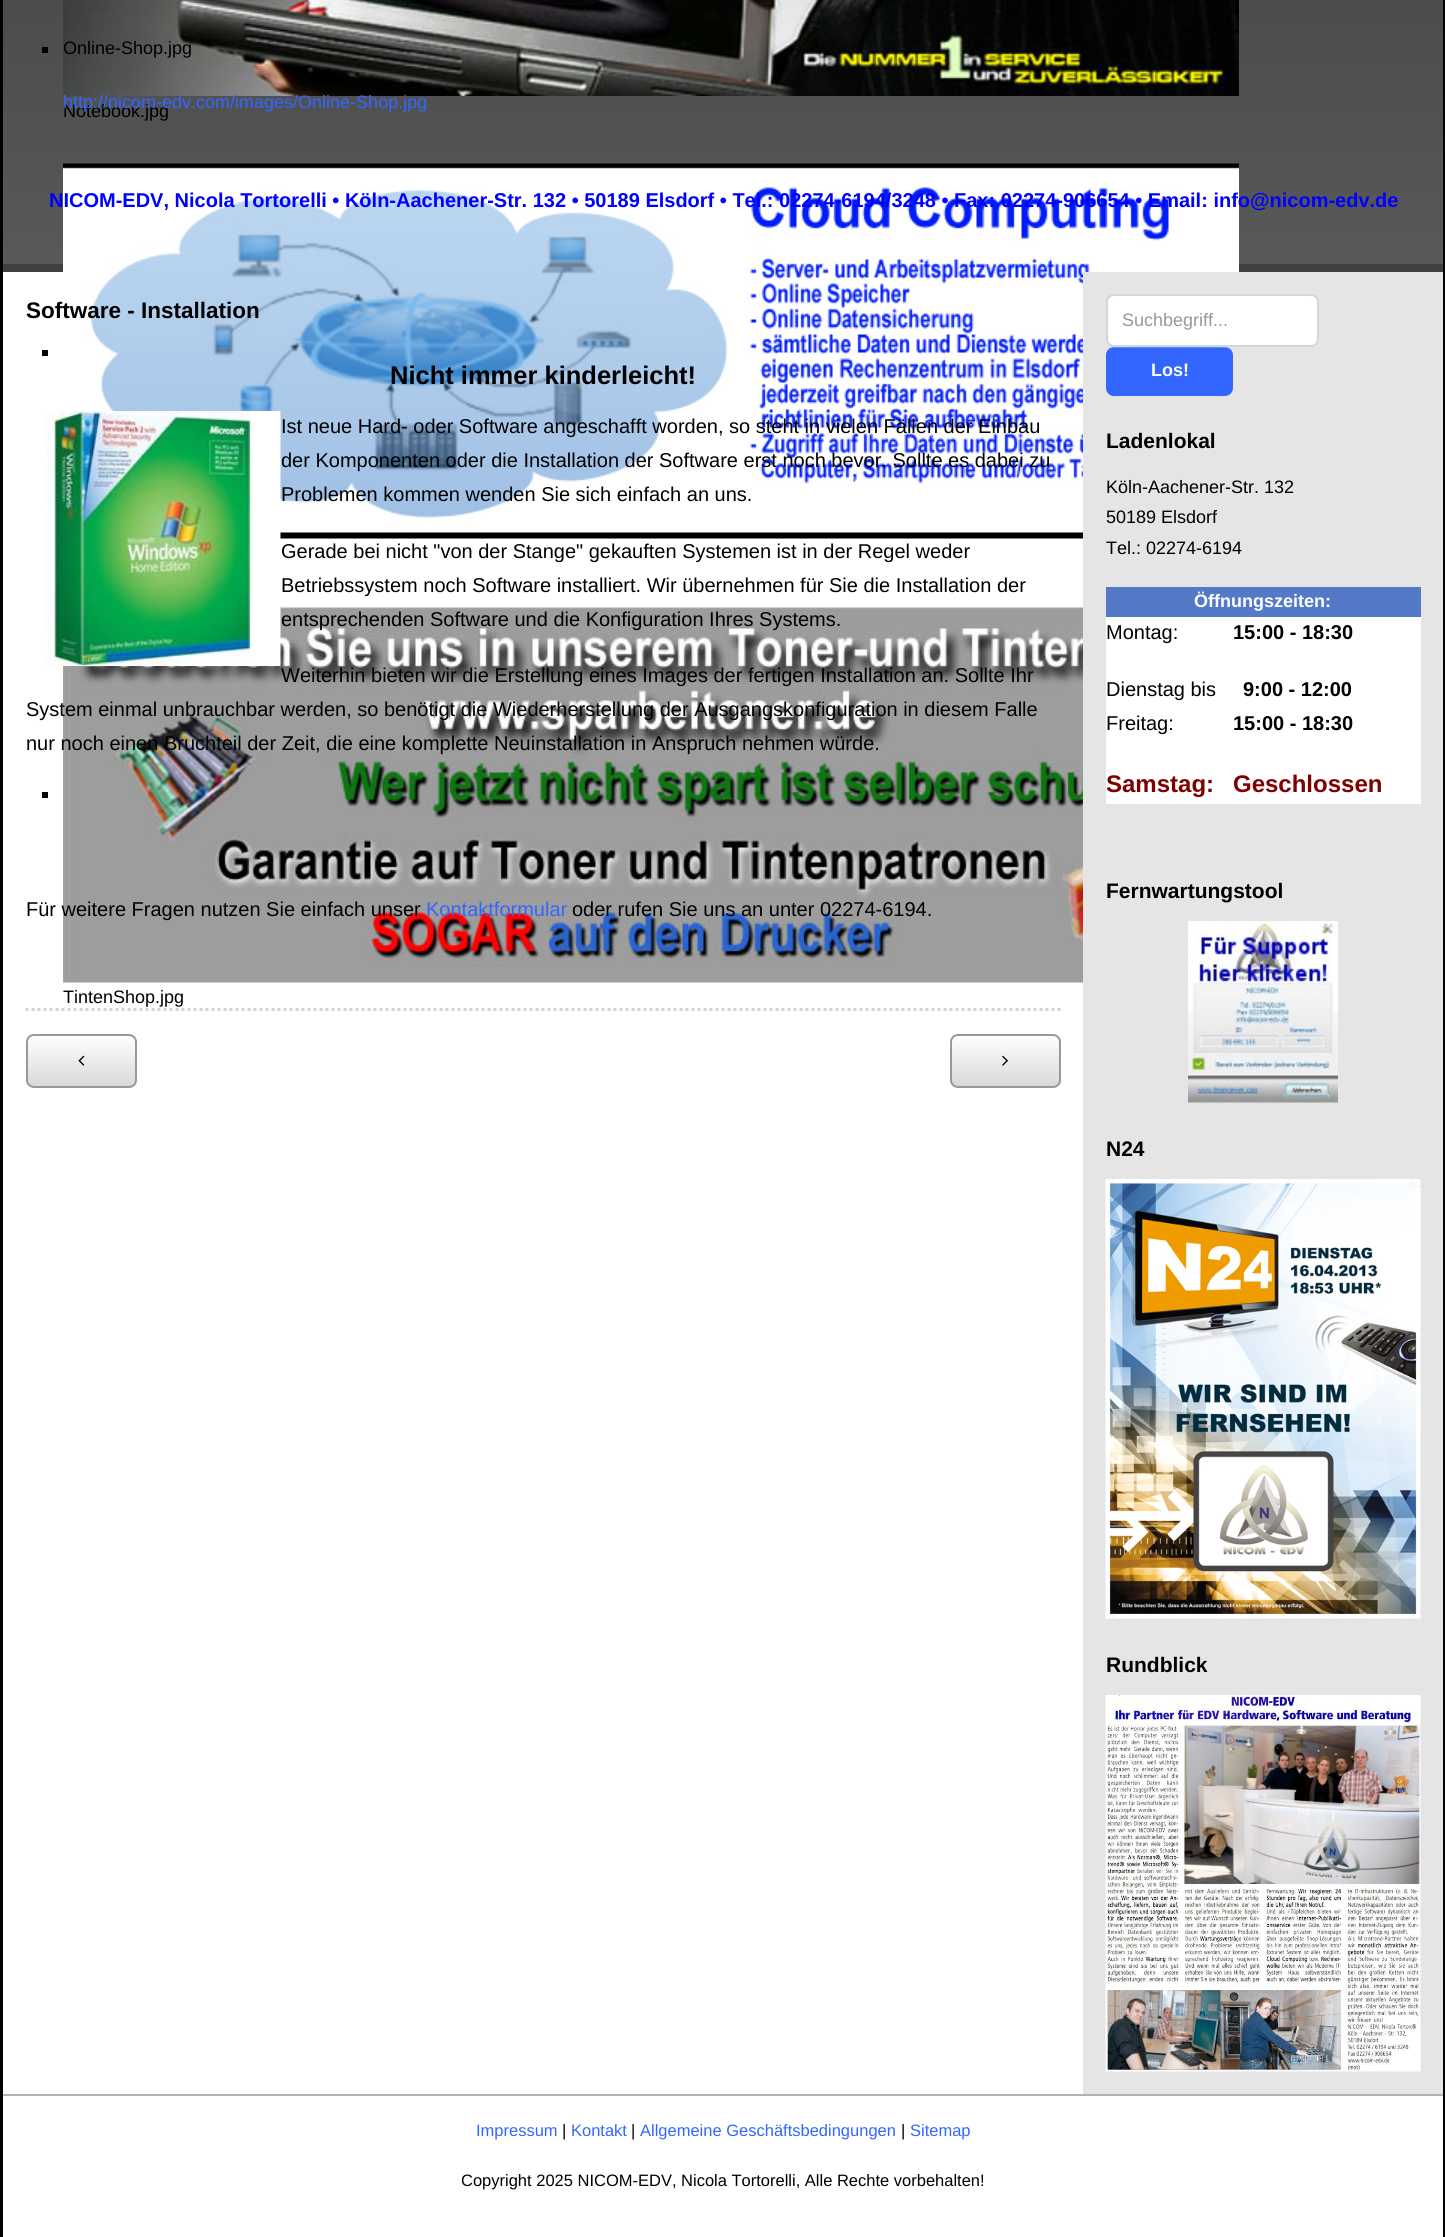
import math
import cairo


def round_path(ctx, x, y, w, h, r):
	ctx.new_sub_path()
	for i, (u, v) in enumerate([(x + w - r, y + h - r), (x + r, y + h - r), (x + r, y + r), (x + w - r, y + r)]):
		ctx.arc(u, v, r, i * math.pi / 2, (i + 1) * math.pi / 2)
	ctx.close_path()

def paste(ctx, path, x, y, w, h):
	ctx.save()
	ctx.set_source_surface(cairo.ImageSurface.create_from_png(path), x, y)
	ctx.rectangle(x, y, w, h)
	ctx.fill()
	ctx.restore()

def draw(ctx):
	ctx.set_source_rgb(1, 1, 1)
	ctx.paint()
	ctx.set_source_rgb(0, 0, 0)
	ctx.rectangle(1443, 0, 2, 2237)
	ctx.fill()
	ctx.rectangle(0, 0, 3, 2237)
	ctx.fill()
	gradient = cairo.LinearGradient(723, 264, 723, -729)
	gradient.add_color_stop_rgba(0, 0.349, 0.349, 0.349, 1)
	gradient.add_color_stop_rgba(1, 0.157, 0.157, 0.157, 1)
	ctx.set_source(gradient)
	ctx.rectangle(3, 0, 1440, 264)
	ctx.fill()
	ctx.set_source_rgb(0.251, 0.251, 0.251)
	ctx.rectangle(3, 264, 1440, 8)
	ctx.fill()
	ctx.set_source_rgb(0, 0, 0)
	ctx.rectangle(42, 47, 6, 6)
	ctx.fill()
	paste(ctx, 'media/1.png', 63, 0, 1176, 96)
	ctx.select_font_face('Liberation Sans')
	ctx.set_font_size(18)
	ctx.move_to(63, 54)
	ctx.show_text('Online-Shop.jpg')
	ctx.move_to(63, 117)
	ctx.show_text('Notebook.jpg')
	ctx.set_source_rgb(0.2, 0.4, 1)
	ctx.move_to(63, 108)
	ctx.show_text('http://nicom-edv.com/images/Online-Shop.jpg')
	ctx.set_source_rgb(0, 0, 0)
	ctx.rectangle(42, 350, 6, 6)
	ctx.fill()
	paste(ctx, 'media/2.png', 63, 163, 1176, 376)
	ctx.rectangle(42, 792, 6, 6)
	ctx.fill()
	paste(ctx, 'media/3.png', 63, 607, 1020, 376)
	ctx.move_to(63, 1003)
	ctx.show_text('TintenShop.jpg')
	ctx.select_font_face('Liberation Sans', cairo.FONT_SLANT_NORMAL, cairo.FONT_WEIGHT_BOLD)
	ctx.set_font_size(20)
	ctx.set_source_rgb(0, 0, 1)
	ctx.move_to(49, 207)
	ctx.show_text('NICOM-EDV, Nicola Tortorelli • Köln-Aachener-Str. 132 • 50189 Elsdorf • Tel.: 02274-6194/3248 • Fax: 02274-906654 • Email: info@nicom-edv.de')
	ctx.set_font_size(22.5)
	ctx.set_source_rgb(0, 0, 0)
	ctx.move_to(26, 318)
	ctx.show_text('Software - Installation')
	ctx.set_font_size(25.5)
	ctx.move_to(390, 384)
	ctx.show_text('Nicht immer kinderleicht!')
	paste(ctx, 'media/4.png', 45, 411, 236, 255)
	ctx.select_font_face('Liberation Sans')
	ctx.set_font_size(20)
	for x, y, s in [
		(281, 433, 'Ist neue Hard- oder Software angeschafft worden, so steht in vielen Fällen der Einbau'),
		(281, 467, 'der Komponenten oder die Installation der Software erst noch bevor. Sollte es dabei zu'),
		(281, 501, 'Problemen kommen wenden Sie sich einfach an uns.'),
		(281, 558, 'Gerade bei nicht "von der Stange" gekauften Systemen ist in der Regel weder'),
		(281, 592, 'Betriebssystem noch Software installiert. Wir übernehmen für Sie die Installation der'),
		(281, 626, 'entsprechenden Software und die Konfiguration Ihres Systems.'),
		(281, 682, 'Weiterhin bieten wir die Erstellung eines Images der fertigen Installation an. Sollte Ihr'),
		(26, 716, 'System einmal unbrauchbar werden, so benötigt die Wiederherstellung der Ausgangskonfiguration in diesem Falle'),
		(26, 750, 'nur noch einen Bruchteil der Zeit, die eine komplette Neuinstallation in Anspruch nehmen würde.'),
		(26, 916, 'Für weitere Fragen nutzen Sie einfach unser'),
	]:
		ctx.move_to(x, y)
		ctx.show_text(s)
	ctx.set_source_rgb(0.2, 0.4, 1)
	ctx.move_to(426, 916)
	ctx.show_text('Kontaktformular')
	ctx.set_source_rgb(0, 0, 0)
	ctx.move_to(572, 916)
	ctx.show_text('oder rufen Sie uns an unter 02274-6194.')
	ctx.new_path()
	ctx.move_to(25.5, 1009.5)
	ctx.line_to(1060.5, 1009.5)
	ctx.set_source_rgb(0.827, 0.827, 0.827)
	ctx.set_line_width(3)
	ctx.set_dash([3, 3])
	ctx.stroke()
	ctx.save()
	round_path(ctx, 26, 1034, 111, 54, 8)
	ctx.clip()
	gradient = cairo.LinearGradient(81, 1035, 81, 1086)
	gradient.add_color_stop_rgba(0, 1, 1, 1, 1)
	gradient.add_color_stop_rgba(1, 0.851, 0.851, 0.851, 1)
	ctx.set_source(gradient)
	ctx.rectangle(26, 1035, 111, 51)
	ctx.fill()
	ctx.restore()
	round_path(ctx, 27, 1035, 109, 52, 7)
	ctx.set_source_rgb(0.6, 0.6, 0.6)
	ctx.set_line_width(2)
	ctx.set_dash([])
	ctx.stroke()
	paste(ctx, 'media/5.png', 78, 1055, 7, 11)
	ctx.save()
	round_path(ctx, 950, 1034, 111, 54, 8)
	ctx.clip()
	gradient = cairo.LinearGradient(1005, 1035, 1005, 1086)
	gradient.add_color_stop_rgba(0, 1, 1, 1, 1)
	gradient.add_color_stop_rgba(1, 0.851, 0.851, 0.851, 1)
	ctx.set_source(gradient)
	ctx.rectangle(950, 1035, 111, 51)
	ctx.fill()
	ctx.restore()
	round_path(ctx, 951, 1035, 109, 52, 7)
	ctx.stroke()
	paste(ctx, 'media/6.png', 1002, 1055, 6, 11)
	ctx.set_source_rgb(0.898, 0.898, 0.898)
	ctx.rectangle(1083, 272, 360, 1822)
	ctx.fill()
	ctx.set_source_rgb(1, 1, 1)
	round_path(ctx, 1107, 295, 211, 51, 7)
	ctx.fill_preserve()
	ctx.set_source_rgb(0.82, 0.839, 0.871)
	ctx.stroke()
	ctx.set_font_size(18)
	ctx.set_source_rgb(0.6, 0.6, 0.6)
	ctx.move_to(1122, 326)
	ctx.show_text('Suchbegriff...')
	ctx.set_source_rgb(0.2, 0.4, 1)
	round_path(ctx, 1106, 347, 127, 49, 8)
	ctx.fill()
	ctx.set_source_rgba(1, 1, 1, 0.2)
	ctx.new_path()
	ctx.move_to(1113, 348)
	ctx.line_to(1226, 348)
	ctx.curve_to(1230, 348, 1233, 351, 1233, 356)
	ctx.curve_to(1233, 342, 1214, 347, 1206, 347)
	ctx.line_to(1132, 347)
	ctx.curve_to(1125, 347, 1106, 342, 1106, 356)
	ctx.curve_to(1106, 351, 1109, 348, 1113, 348)
	ctx.close_path()
	ctx.fill()
	ctx.select_font_face('Liberation Sans', cairo.FONT_SLANT_NORMAL, cairo.FONT_WEIGHT_BOLD)
	ctx.set_source_rgb(1, 1, 1)
	ctx.move_to(1151, 376)
	ctx.show_text('Los!')
	ctx.set_font_size(21)
	ctx.set_source_rgb(0, 0, 0)
	ctx.move_to(1106, 448)
	ctx.show_text('Ladenlokal')
	ctx.select_font_face('Liberation Sans')
	ctx.set_font_size(18)
	for x, y, s in [
		(1106, 493, 'Köln-Aachener-Str. 132'),
		(1106, 523, '50189 Elsdorf'),
		(1106, 554, 'Tel.: 02274-6194'),
	]:
		ctx.move_to(x, y)
		ctx.show_text(s)
	ctx.set_source_rgb(0.329, 0.475, 0.776)
	ctx.rectangle(1106, 587, 315, 30)
	ctx.fill()
	ctx.select_font_face('Liberation Sans', cairo.FONT_SLANT_NORMAL, cairo.FONT_WEIGHT_BOLD)
	ctx.set_source_rgb(1, 1, 1)
	ctx.move_to(1194, 607)
	ctx.show_text('Öffnungszeiten:')
	ctx.rectangle(1106, 617, 315, 57)
	ctx.fill()
	ctx.select_font_face('Liberation Sans')
	ctx.set_font_size(20)
	ctx.set_source_rgb(0, 0, 0)
	ctx.move_to(1106, 639)
	ctx.show_text('Montag:')
	ctx.select_font_face('Liberation Sans', cairo.FONT_SLANT_NORMAL, cairo.FONT_WEIGHT_BOLD)
	ctx.move_to(1233, 639)
	ctx.show_text('15:00 - 18:30')
	ctx.set_source_rgb(1, 1, 1)
	ctx.rectangle(1106, 674, 315, 90)
	ctx.fill()
	ctx.select_font_face('Liberation Sans')
	ctx.set_source_rgb(0, 0, 0)
	ctx.move_to(1106, 696)
	ctx.show_text('Dienstag bis')
	ctx.move_to(1106, 730)
	ctx.show_text('Freitag:')
	ctx.select_font_face('Liberation Sans', cairo.FONT_SLANT_NORMAL, cairo.FONT_WEIGHT_BOLD)
	ctx.move_to(1243, 696)
	ctx.show_text('9:00 - 12:00')
	ctx.move_to(1233, 730)
	ctx.show_text('15:00 - 18:30')
	ctx.set_source_rgb(1, 1, 1)
	ctx.rectangle(1106, 764, 315, 40)
	ctx.fill()
	ctx.set_font_size(24)
	ctx.set_source_rgb(0.502, 0, 0)
	ctx.move_to(1106, 792)
	ctx.show_text('Samstag:')
	ctx.move_to(1233, 792)
	ctx.show_text('Geschlossen')
	ctx.set_font_size(21)
	ctx.set_source_rgb(0, 0, 0)
	ctx.move_to(1106, 898)
	ctx.show_text('Fernwartungstool')
	paste(ctx, 'media/7.png', 1188, 921, 150, 182)
	ctx.move_to(1106, 1156)
	ctx.show_text('N24')
	paste(ctx, 'media/8.png', 1105, 1179, 316, 440)
	ctx.move_to(1106, 1672)
	ctx.show_text('Rundblick')
	paste(ctx, 'media/9.png', 1105, 1695, 316, 377)
	ctx.set_source_rgb(0.702, 0.702, 0.702)
	ctx.rectangle(3, 2094, 1440, 2)
	ctx.fill()
	ctx.select_font_face('Liberation Sans')
	ctx.set_font_size(16.5)
	ctx.set_source_rgb(0.2, 0.4, 1)
	ctx.move_to(476, 2136)
	ctx.show_text('Impressum')
	ctx.set_source_rgb(0, 0, 0)
	ctx.move_to(562, 2136)
	ctx.show_text('|')
	ctx.set_source_rgb(0.2, 0.4, 1)
	ctx.move_to(571, 2136)
	ctx.show_text('Kontakt')
	ctx.set_source_rgb(0, 0, 0)
	ctx.move_to(631, 2136)
	ctx.show_text('|')
	ctx.set_source_rgb(0.2, 0.4, 1)
	ctx.move_to(640, 2136)
	ctx.show_text('Allgemeine Geschäftsbedingungen')
	ctx.set_source_rgb(0, 0, 0)
	ctx.move_to(901, 2136)
	ctx.show_text('|')
	ctx.set_source_rgb(0.2, 0.4, 1)
	ctx.move_to(910, 2136)
	ctx.show_text('Sitemap')
	ctx.set_source_rgb(0, 0, 0)
	ctx.move_to(461, 2186)
	ctx.show_text('Copyright 2025 NICOM-EDV, Nicola Tortorelli, Alle Rechte vorbehalten!')


surface = cairo.ImageSurface(cairo.FORMAT_RGB24, 1445, 2237)
ctx = cairo.Context(surface)
options = cairo.FontOptions()
options.set_hint_metrics(cairo.HINT_METRICS_OFF)
options.set_hint_style(cairo.HINT_STYLE_NONE)
ctx.set_font_options(options)
ctx.set_miter_limit(4)
draw(ctx)
surface.write_to_png('image.png')
